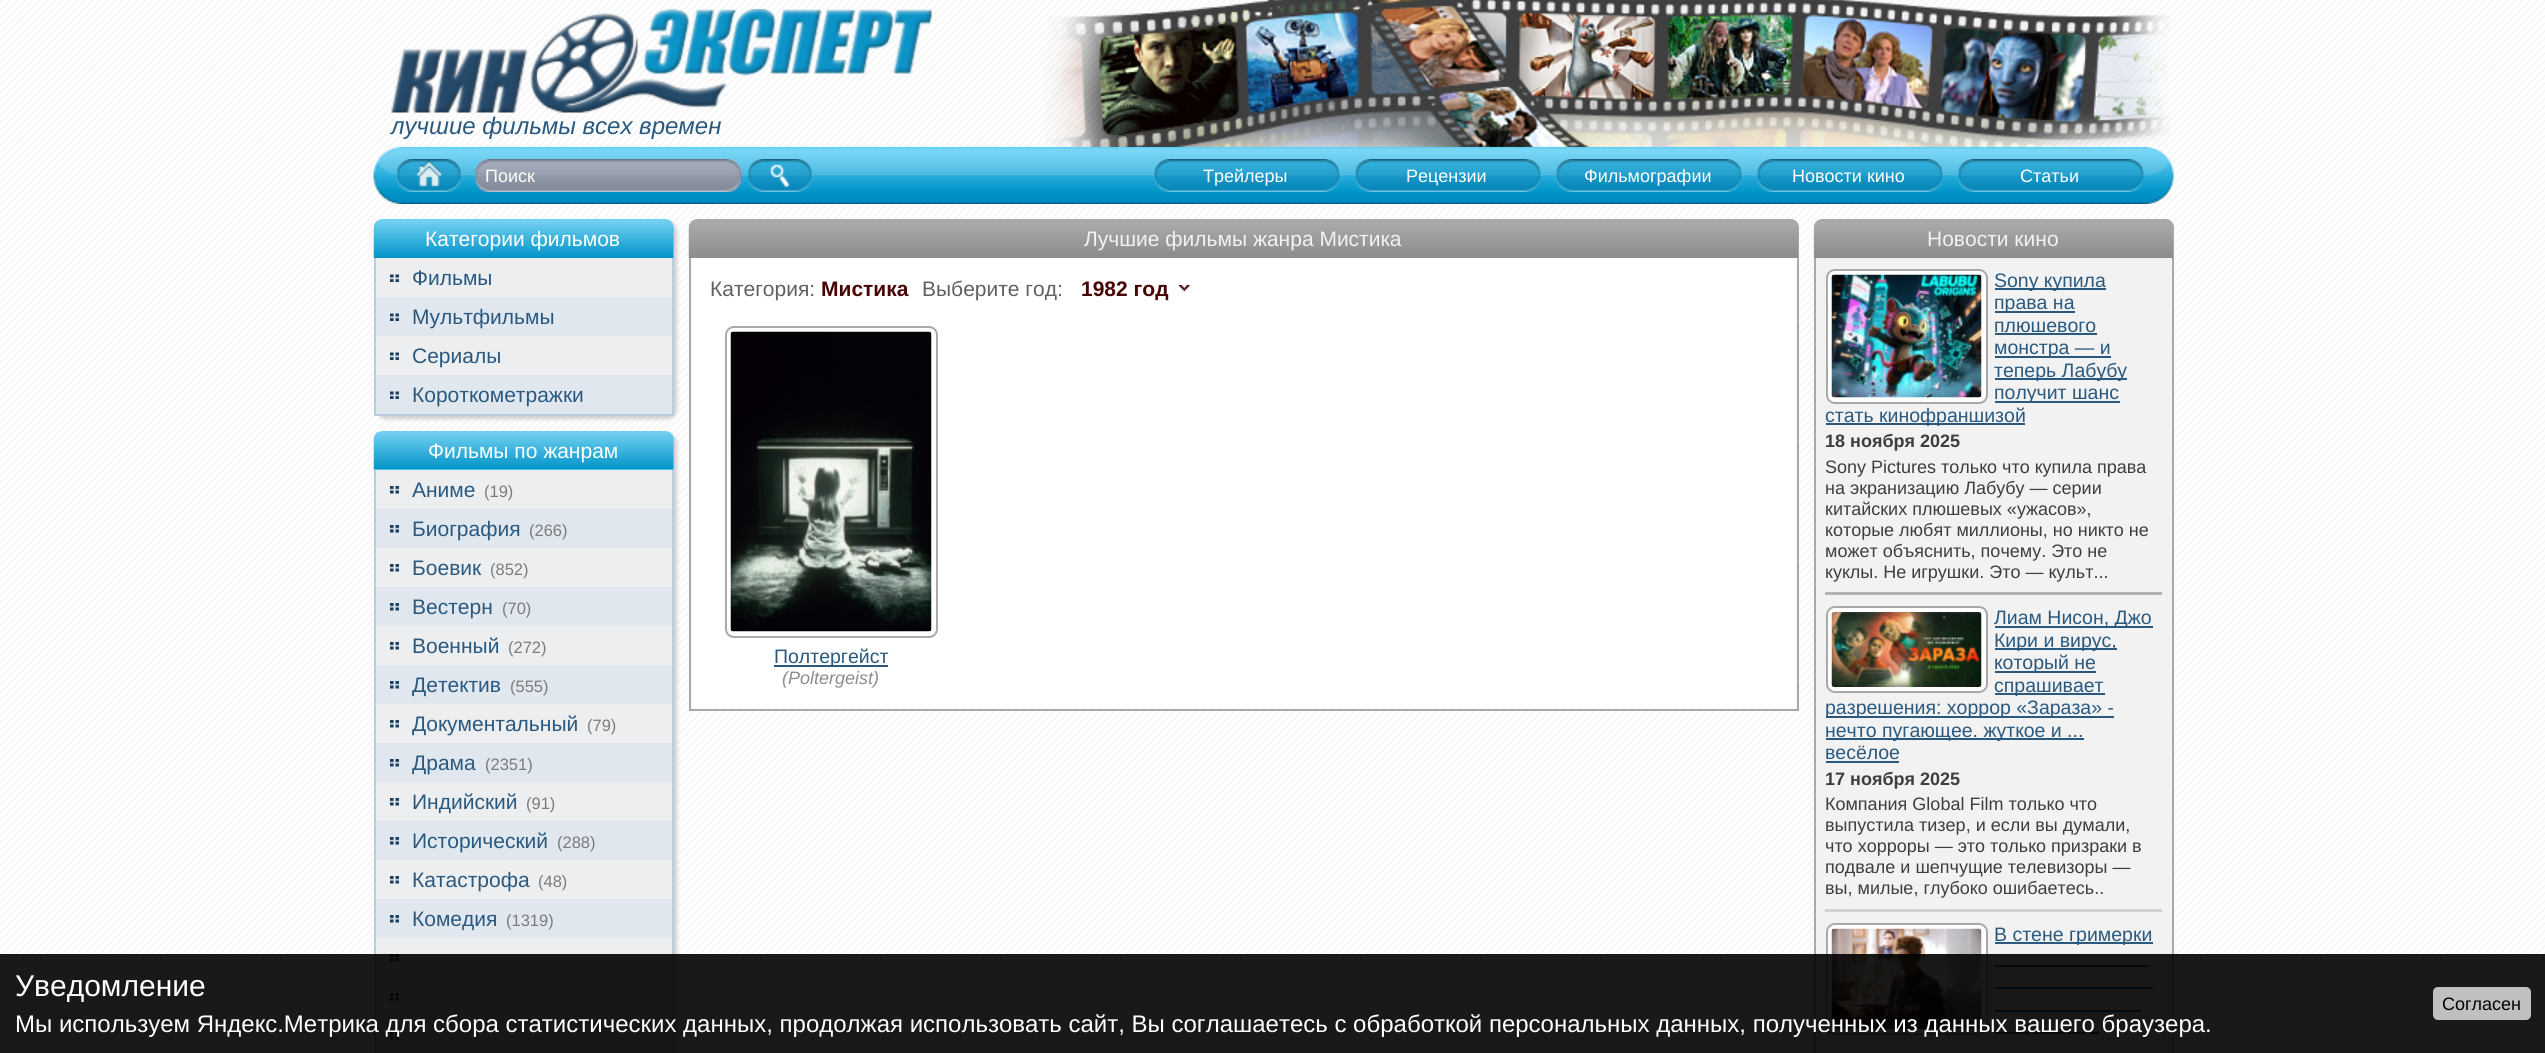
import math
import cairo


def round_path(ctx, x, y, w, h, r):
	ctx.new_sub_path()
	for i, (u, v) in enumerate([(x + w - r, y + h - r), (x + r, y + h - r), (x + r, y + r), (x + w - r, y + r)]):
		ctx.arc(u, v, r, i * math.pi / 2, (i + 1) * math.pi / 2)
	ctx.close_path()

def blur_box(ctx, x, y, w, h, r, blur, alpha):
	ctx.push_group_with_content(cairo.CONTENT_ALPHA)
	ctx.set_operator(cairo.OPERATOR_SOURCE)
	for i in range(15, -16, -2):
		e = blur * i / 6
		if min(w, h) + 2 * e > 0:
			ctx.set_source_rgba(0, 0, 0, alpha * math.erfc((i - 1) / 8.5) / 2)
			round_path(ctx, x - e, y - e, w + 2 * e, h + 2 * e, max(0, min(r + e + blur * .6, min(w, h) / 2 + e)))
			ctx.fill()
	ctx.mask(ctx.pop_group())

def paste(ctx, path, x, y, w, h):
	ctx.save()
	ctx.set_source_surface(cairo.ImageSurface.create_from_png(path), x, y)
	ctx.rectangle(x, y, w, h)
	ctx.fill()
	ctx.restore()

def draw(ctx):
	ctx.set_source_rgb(1, 1, 1)
	ctx.paint()
	paste(ctx, 'media/1.png', 0, 0, 2545, 1053)
	paste(ctx, 'media/2.png', 1045, 0, 1125, 147)
	paste(ctx, 'media/3.png', 391, 9, 541, 104)
	ctx.select_font_face('Liberation Sans', cairo.FONT_SLANT_ITALIC)
	ctx.set_font_size(24)
	ctx.set_source_rgb(0.165, 0.349, 0.502)
	ctx.move_to(391, 134)
	ctx.show_text('лучшие фильмы всех времен')
	paste(ctx, 'media/4.png', 373, 147, 1801, 57)
	paste(ctx, 'media/5.png', 396, 159, 65, 33)
	paste(ctx, 'media/6.png', 475, 159, 266, 33)
	ctx.select_font_face('Liberation Sans')
	ctx.set_font_size(18)
	ctx.set_source_rgb(1, 1, 1)
	ctx.move_to(485, 182)
	ctx.show_text('Поиск')
	paste(ctx, 'media/7.png', 748, 159, 64, 33)
	paste(ctx, 'media/8.png', 1153, 159, 187, 33)
	ctx.move_to(1203, 182)
	ctx.show_text('Трейлеры')
	paste(ctx, 'media/8.png', 1354, 159, 187, 33)
	ctx.move_to(1406, 182)
	ctx.show_text('Рецензии')
	paste(ctx, 'media/9.png', 1555, 159, 187, 33)
	ctx.move_to(1584, 182)
	ctx.show_text('Фильмографии')
	paste(ctx, 'media/9.png', 1756, 159, 187, 33)
	ctx.move_to(1792, 182)
	ctx.show_text('Новости кино')
	paste(ctx, 'media/8.png', 1957, 159, 187, 33)
	ctx.move_to(2020, 182)
	ctx.show_text('Статьи')
	ctx.set_source_rgb(0.804, 0.804, 0.804)
	blur_box(ctx, 377, 222, 300, 197, 9, 2, 1)
	ctx.set_source_rgb(0.925, 0.933, 0.937)
	ctx.new_path()
	ctx.move_to(383, 219)
	ctx.line_to(665, 219)
	ctx.curve_to(670, 219, 674, 223, 674, 228)
	ctx.line_to(674, 416)
	ctx.line_to(374, 416)
	ctx.line_to(374, 228)
	ctx.curve_to(374, 223, 378, 219, 383, 219)
	ctx.close_path()
	ctx.fill()
	ctx.set_source_rgb(0.725, 0.8, 0.878)
	ctx.rectangle(374, 414, 300, 2)
	ctx.fill()
	ctx.set_source_rgb(0.443, 0.816, 0.949)
	ctx.new_path()
	ctx.move_to(383, 219)
	ctx.line_to(665, 219)
	ctx.curve_to(670, 219, 674, 223, 674, 228)
	ctx.line_to(674, 258)
	ctx.line_to(374, 258)
	ctx.line_to(374, 228)
	ctx.curve_to(374, 223, 378, 219, 383, 219)
	ctx.close_path()
	ctx.fill()
	paste(ctx, 'media/10.png', 373, 220, 301, 38)
	ctx.set_font_size(21)
	ctx.set_source_rgb(1, 1, 1)
	ctx.move_to(425, 246)
	ctx.show_text('Категории фильмов')
	ctx.set_source_rgb(0.725, 0.8, 0.878)
	ctx.rectangle(672, 258, 2, 156)
	ctx.fill()
	ctx.rectangle(374, 258, 2, 156)
	ctx.fill()
	paste(ctx, 'media/11.png', 390, 274, 9, 8)
	ctx.set_source_rgb(0.165, 0.349, 0.502)
	ctx.move_to(412, 285)
	ctx.show_text('Фильмы')
	ctx.set_source_rgb(0.878, 0.906, 0.937)
	ctx.rectangle(376, 297, 296, 39)
	ctx.fill()
	paste(ctx, 'media/12.png', 390, 313, 9, 8)
	ctx.set_source_rgb(0.165, 0.349, 0.502)
	ctx.move_to(412, 324)
	ctx.show_text('Мультфильмы')
	paste(ctx, 'media/11.png', 390, 352, 9, 8)
	ctx.move_to(412, 363)
	ctx.show_text('Сериалы')
	ctx.set_source_rgb(0.878, 0.906, 0.937)
	ctx.rectangle(376, 375, 296, 39)
	ctx.fill()
	paste(ctx, 'media/12.png', 390, 391, 9, 8)
	ctx.set_source_rgb(0.165, 0.349, 0.502)
	ctx.move_to(412, 402)
	ctx.show_text('Короткометражки')
	ctx.set_source_rgb(0.804, 0.804, 0.804)
	blur_box(ctx, 377, 434, 300, 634, 9, 2, 1)
	ctx.set_source_rgb(0.925, 0.933, 0.937)
	ctx.new_path()
	ctx.move_to(383, 431)
	ctx.line_to(665, 431)
	ctx.curve_to(670, 431, 674, 435, 674, 440)
	ctx.line_to(674, 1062)
	ctx.line_to(374, 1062)
	ctx.line_to(374, 440)
	ctx.curve_to(374, 435, 378, 431, 383, 431)
	ctx.close_path()
	ctx.fill()
	ctx.set_source_rgb(0.443, 0.816, 0.949)
	ctx.new_path()
	ctx.move_to(383, 431)
	ctx.line_to(665, 431)
	ctx.curve_to(670, 431, 674, 435, 674, 440)
	ctx.line_to(674, 470)
	ctx.line_to(374, 470)
	ctx.line_to(374, 440)
	ctx.curve_to(374, 435, 378, 431, 383, 431)
	ctx.close_path()
	ctx.fill()
	paste(ctx, 'media/13.png', 373, 432, 301, 38)
	ctx.set_source_rgb(1, 1, 1)
	ctx.move_to(428, 458)
	ctx.show_text('Фильмы по жанрам')
	ctx.set_source_rgb(0.725, 0.8, 0.878)
	ctx.rectangle(672, 470, 2, 583)
	ctx.fill()
	ctx.rectangle(374, 470, 2, 583)
	ctx.fill()
	paste(ctx, 'media/14.png', 390, 486, 9, 8)
	ctx.set_source_rgb(0.165, 0.349, 0.502)
	ctx.move_to(412, 497)
	ctx.show_text('Аниме')
	ctx.set_font_size(16.5)
	ctx.set_source_rgb(0.482, 0.482, 0.482)
	ctx.move_to(484, 497)
	ctx.show_text('(19)')
	ctx.set_source_rgb(0.878, 0.906, 0.937)
	ctx.rectangle(376, 509, 296, 39)
	ctx.fill()
	paste(ctx, 'media/15.png', 390, 525, 9, 8)
	ctx.set_font_size(21)
	ctx.set_source_rgb(0.165, 0.349, 0.502)
	ctx.move_to(412, 536)
	ctx.show_text('Биография')
	ctx.set_font_size(16.5)
	ctx.set_source_rgb(0.482, 0.482, 0.482)
	ctx.move_to(529, 536)
	ctx.show_text('(266)')
	paste(ctx, 'media/14.png', 390, 564, 9, 8)
	ctx.set_font_size(21)
	ctx.set_source_rgb(0.165, 0.349, 0.502)
	ctx.move_to(412, 575)
	ctx.show_text('Боевик')
	ctx.set_font_size(16.5)
	ctx.set_source_rgb(0.482, 0.482, 0.482)
	ctx.move_to(490, 575)
	ctx.show_text('(852)')
	ctx.set_source_rgb(0.878, 0.906, 0.937)
	ctx.rectangle(376, 587, 296, 39)
	ctx.fill()
	paste(ctx, 'media/15.png', 390, 603, 9, 8)
	ctx.set_font_size(21)
	ctx.set_source_rgb(0.165, 0.349, 0.502)
	ctx.move_to(412, 614)
	ctx.show_text('Вестерн')
	ctx.set_font_size(16.5)
	ctx.set_source_rgb(0.482, 0.482, 0.482)
	ctx.move_to(502, 614)
	ctx.show_text('(70)')
	paste(ctx, 'media/14.png', 390, 642, 9, 8)
	ctx.set_font_size(21)
	ctx.set_source_rgb(0.165, 0.349, 0.502)
	ctx.move_to(412, 653)
	ctx.show_text('Военный')
	ctx.set_font_size(16.5)
	ctx.set_source_rgb(0.482, 0.482, 0.482)
	ctx.move_to(508, 653)
	ctx.show_text('(272)')
	ctx.set_source_rgb(0.878, 0.906, 0.937)
	ctx.rectangle(376, 665, 296, 39)
	ctx.fill()
	paste(ctx, 'media/15.png', 390, 681, 9, 8)
	ctx.set_font_size(21)
	ctx.set_source_rgb(0.165, 0.349, 0.502)
	ctx.move_to(412, 692)
	ctx.show_text('Детектив')
	ctx.set_font_size(16.5)
	ctx.set_source_rgb(0.482, 0.482, 0.482)
	ctx.move_to(510, 692)
	ctx.show_text('(555)')
	paste(ctx, 'media/14.png', 390, 720, 9, 8)
	ctx.set_font_size(21)
	ctx.set_source_rgb(0.165, 0.349, 0.502)
	ctx.move_to(412, 731)
	ctx.show_text('Документальный')
	ctx.set_font_size(16.5)
	ctx.set_source_rgb(0.482, 0.482, 0.482)
	ctx.move_to(587, 731)
	ctx.show_text('(79)')
	ctx.set_source_rgb(0.878, 0.906, 0.937)
	ctx.rectangle(376, 743, 296, 39)
	ctx.fill()
	paste(ctx, 'media/15.png', 390, 759, 9, 8)
	ctx.set_font_size(21)
	ctx.set_source_rgb(0.165, 0.349, 0.502)
	ctx.move_to(412, 770)
	ctx.show_text('Драма')
	ctx.set_font_size(16.5)
	ctx.set_source_rgb(0.482, 0.482, 0.482)
	ctx.move_to(485, 770)
	ctx.show_text('(2351)')
	paste(ctx, 'media/14.png', 390, 798, 9, 8)
	ctx.set_font_size(21)
	ctx.set_source_rgb(0.165, 0.349, 0.502)
	ctx.move_to(412, 809)
	ctx.show_text('Индийский')
	ctx.set_font_size(16.5)
	ctx.set_source_rgb(0.482, 0.482, 0.482)
	ctx.move_to(526, 809)
	ctx.show_text('(91)')
	ctx.set_source_rgb(0.878, 0.906, 0.937)
	ctx.rectangle(376, 821, 296, 39)
	ctx.fill()
	paste(ctx, 'media/15.png', 390, 837, 9, 8)
	ctx.set_font_size(21)
	ctx.set_source_rgb(0.165, 0.349, 0.502)
	ctx.move_to(412, 848)
	ctx.show_text('Исторический')
	ctx.set_font_size(16.5)
	ctx.set_source_rgb(0.482, 0.482, 0.482)
	ctx.move_to(557, 848)
	ctx.show_text('(288)')
	paste(ctx, 'media/14.png', 390, 876, 9, 8)
	ctx.set_font_size(21)
	ctx.set_source_rgb(0.165, 0.349, 0.502)
	ctx.move_to(412, 887)
	ctx.show_text('Катастрофа')
	ctx.set_font_size(16.5)
	ctx.set_source_rgb(0.482, 0.482, 0.482)
	ctx.move_to(538, 887)
	ctx.show_text('(48)')
	ctx.set_source_rgb(0.878, 0.906, 0.937)
	ctx.rectangle(376, 899, 296, 39)
	ctx.fill()
	paste(ctx, 'media/15.png', 390, 915, 9, 8)
	ctx.set_font_size(21)
	ctx.set_source_rgb(0.165, 0.349, 0.502)
	ctx.move_to(412, 926)
	ctx.show_text('Комедия')
	ctx.set_font_size(16.5)
	ctx.set_source_rgb(0.482, 0.482, 0.482)
	ctx.move_to(506, 926)
	ctx.show_text('(1319)')
	paste(ctx, 'media/14.png', 390, 954, 9, 8)
	ctx.set_source_rgb(0.878, 0.906, 0.937)
	ctx.rectangle(376, 977, 296, 39)
	ctx.fill()
	paste(ctx, 'media/15.png', 390, 993, 9, 8)
	paste(ctx, 'media/14.png', 390, 1032, 9, 8)
	ctx.set_source_rgb(1, 1, 1)
	ctx.new_path()
	ctx.move_to(698, 220)
	ctx.line_to(1790, 220)
	ctx.curve_to(1794.5, 220, 1798, 223.5, 1798, 228)
	ctx.line_to(1798, 710)
	ctx.line_to(690, 710)
	ctx.line_to(690, 228)
	ctx.curve_to(690, 223.5, 693.5, 220, 698, 220)
	ctx.close_path()
	ctx.fill_preserve()
	ctx.set_source_rgb(0.663, 0.663, 0.663)
	ctx.stroke()
	ctx.new_path()
	ctx.move_to(698, 219)
	ctx.line_to(1790, 219)
	ctx.curve_to(1795, 219, 1799, 223, 1799, 228)
	ctx.line_to(1799, 258)
	ctx.line_to(689, 258)
	ctx.line_to(689, 228)
	ctx.curve_to(689, 223, 693, 219, 698, 219)
	ctx.close_path()
	ctx.fill()
	paste(ctx, 'media/16.png', 688, 220, 1111, 38)
	ctx.set_font_size(21)
	ctx.set_source_rgb(0.949, 0.949, 0.949)
	ctx.move_to(1084, 246)
	ctx.show_text('Лучшие фильмы жанра Мистика')
	ctx.set_source_rgb(0.376, 0.376, 0.376)
	ctx.move_to(710, 296)
	ctx.show_text('Категория:')
	ctx.select_font_face('Liberation Sans', cairo.FONT_SLANT_NORMAL, cairo.FONT_WEIGHT_BOLD)
	ctx.set_source_rgb(0.286, 0.016, 0.016)
	ctx.move_to(821, 296)
	ctx.show_text('Мистика')
	ctx.select_font_face('Liberation Sans')
	ctx.set_source_rgb(0.376, 0.376, 0.376)
	ctx.move_to(922, 296)
	ctx.show_text('Выберите год:')
	paste(ctx, 'media/17.png', 1179, 285, 11, 6)
	ctx.select_font_face('Liberation Sans', cairo.FONT_SLANT_NORMAL, cairo.FONT_WEIGHT_BOLD)
	ctx.set_source_rgb(0.286, 0.016, 0.016)
	ctx.move_to(1081, 296)
	ctx.show_text('1982 год')
	round_path(ctx, 726, 327, 211, 310, 8)
	ctx.set_source_rgb(0.663, 0.663, 0.663)
	ctx.stroke()
	paste(ctx, 'media/18.png', 730, 331, 202, 301)
	ctx.set_source_rgb(0.165, 0.349, 0.502)
	ctx.rectangle(774, 665, 114, 2)
	ctx.fill()
	ctx.select_font_face('Liberation Sans')
	ctx.set_font_size(19.5)
	ctx.move_to(774, 663)
	ctx.show_text('Полтергейст')
	ctx.select_font_face('Liberation Sans', cairo.FONT_SLANT_ITALIC)
	ctx.set_font_size(18)
	ctx.set_source_rgb(0.549, 0.549, 0.549)
	ctx.move_to(782, 684)
	ctx.show_text('(Poltergeist)')
	ctx.set_source_rgb(0.949, 0.949, 0.949)
	ctx.new_path()
	ctx.move_to(1823, 220)
	ctx.line_to(2165, 220)
	ctx.curve_to(2169.5, 220, 2173, 223.5, 2173, 228)
	ctx.line_to(2173, 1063)
	ctx.line_to(1815, 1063)
	ctx.line_to(1815, 228)
	ctx.curve_to(1815, 223.5, 1818.5, 220, 1823, 220)
	ctx.close_path()
	ctx.fill_preserve()
	ctx.set_source_rgb(0.663, 0.663, 0.663)
	ctx.stroke()
	ctx.new_path()
	ctx.move_to(1823, 219)
	ctx.line_to(2165, 219)
	ctx.curve_to(2170, 219, 2174, 223, 2174, 228)
	ctx.line_to(2174, 258)
	ctx.line_to(1814, 258)
	ctx.line_to(1814, 228)
	ctx.curve_to(1814, 223, 1818, 219, 1823, 219)
	ctx.close_path()
	ctx.fill()
	paste(ctx, 'media/19.png', 1813, 220, 360, 38)
	ctx.select_font_face('Liberation Sans')
	ctx.set_font_size(21)
	ctx.set_source_rgb(0.949, 0.949, 0.949)
	ctx.move_to(1927, 246)
	ctx.show_text('Новости кино')
	ctx.set_source_rgb(0.702, 0.702, 0.702)
	ctx.rectangle(1825, 592, 337, 3)
	ctx.fill()
	ctx.set_source_rgb(1, 1, 1)
	round_path(ctx, 1827, 270, 160, 133, 8)
	ctx.fill_preserve()
	ctx.set_source_rgb(0.663, 0.663, 0.663)
	ctx.stroke()
	paste(ctx, 'media/20.png', 1831, 274, 151, 124)
	ctx.set_source_rgb(0.165, 0.349, 0.502)
	ctx.rectangle(1995, 288, 111, 2)
	ctx.fill()
	ctx.set_font_size(19.5)
	ctx.move_to(1994, 287)
	ctx.show_text('Sony купила')
	ctx.rectangle(1995, 311, 80, 2)
	ctx.fill()
	ctx.move_to(1994, 309)
	ctx.show_text('права на')
	ctx.move_to(1994, 332)
	ctx.show_text('плюшевого')
	ctx.rectangle(1995, 333, 102, 2)
	ctx.fill()
	ctx.rectangle(1995, 356, 116, 2)
	ctx.fill()
	ctx.move_to(1994, 354)
	ctx.show_text('монстра — и')
	ctx.rectangle(1995, 378, 132, 2)
	ctx.fill()
	ctx.move_to(1994, 377)
	ctx.show_text('теперь Лабубу')
	ctx.rectangle(1995, 401, 125, 2)
	ctx.fill()
	ctx.move_to(1994, 399)
	ctx.show_text('получит шанс')
	ctx.rectangle(1826, 423, 199, 2)
	ctx.fill()
	ctx.move_to(1825, 422)
	ctx.show_text('стать кинофраншизой')
	ctx.select_font_face('Liberation Sans', cairo.FONT_SLANT_NORMAL, cairo.FONT_WEIGHT_BOLD)
	ctx.set_font_size(18)
	ctx.set_source_rgb(0.243, 0.243, 0.243)
	ctx.move_to(1825, 447)
	ctx.show_text('18 ноября 2025')
	ctx.select_font_face('Liberation Sans')
	for x, y, s in [
		(1825, 473, 'Sony Pictures только что купила права'),
		(1825, 494, 'на экранизацию Лабубу — серии'),
		(1825, 515, 'китайских плюшевых «ужасов»,'),
		(1825, 536, 'которые любят миллионы, но никто не'),
		(1825, 557, 'может объяснить, почему. Это не'),
		(1825, 578, 'куклы. Не игрушки. Это — культ...'),
	]:
		ctx.move_to(x, y)
		ctx.show_text(s)
	ctx.set_source_rgb(0.82, 0.82, 0.82)
	ctx.rectangle(1825, 909, 337, 3)
	ctx.fill()
	ctx.set_source_rgb(1, 1, 1)
	round_path(ctx, 1827, 607, 160, 85, 8)
	ctx.fill_preserve()
	ctx.set_source_rgb(0.663, 0.663, 0.663)
	ctx.stroke()
	paste(ctx, 'media/21.png', 1831, 612, 151, 75)
	ctx.set_source_rgb(0.165, 0.349, 0.502)
	ctx.rectangle(1995, 626, 158, 2)
	ctx.fill()
	ctx.set_font_size(19.5)
	ctx.move_to(1994, 624)
	ctx.show_text('Лиам Нисон, Джо')
	ctx.rectangle(1995, 648, 122, 2)
	ctx.fill()
	ctx.move_to(1994, 647)
	ctx.show_text('Кири и вирус,')
	ctx.rectangle(1995, 671, 101, 2)
	ctx.fill()
	ctx.move_to(1994, 669)
	ctx.show_text('который не')
	ctx.rectangle(1995, 693, 110, 2)
	ctx.fill()
	ctx.move_to(1994, 692)
	ctx.show_text('спрашивает')
	ctx.rectangle(1826, 716, 288, 2)
	ctx.fill()
	ctx.move_to(1825, 714)
	ctx.show_text('разрешения: хоррор «Зараза» -')
	ctx.rectangle(1826, 738, 258, 2)
	ctx.fill()
	ctx.move_to(1825, 737)
	ctx.show_text('нечто пугающее. жуткое и ...')
	ctx.move_to(1825, 759)
	ctx.show_text('весёлое')
	ctx.rectangle(1826, 761, 73, 2)
	ctx.fill()
	ctx.select_font_face('Liberation Sans', cairo.FONT_SLANT_NORMAL, cairo.FONT_WEIGHT_BOLD)
	ctx.set_font_size(18)
	ctx.set_source_rgb(0.243, 0.243, 0.243)
	ctx.move_to(1825, 785)
	ctx.show_text('17 ноября 2025')
	ctx.select_font_face('Liberation Sans')
	for x, y, s in [
		(1825, 810, 'Компания Global Film только что'),
		(1825, 831, 'выпустила тизер, и если вы думали,'),
		(1825, 852, 'что хорроры — это только призраки в'),
		(1825, 873, 'подвале и шепчущие телевизоры —'),
		(1825, 894, 'вы, милые, глубоко ошибаетесь..'),
	]:
		ctx.move_to(x, y)
		ctx.show_text(s)
	ctx.set_source_rgb(1, 1, 1)
	round_path(ctx, 1827, 924, 160, 110, 8)
	ctx.fill_preserve()
	ctx.set_source_rgb(0.663, 0.663, 0.663)
	ctx.stroke()
	paste(ctx, 'media/22.png', 1831, 928, 151, 101)
	ctx.set_source_rgb(0.165, 0.349, 0.502)
	ctx.rectangle(1995, 942, 158, 2)
	ctx.fill()
	ctx.set_font_size(19.5)
	ctx.move_to(1994, 941)
	ctx.show_text('В стене гримерки')
	ctx.rectangle(1995, 965, 155, 2)
	ctx.rectangle(1995, 987, 158, 2)
	ctx.rectangle(1995, 1010, 146, 2)
	ctx.rectangle(1995, 1032, 104, 2)
	ctx.fill()
	ctx.set_source_rgba(0, 0, 0, 0.9)
	ctx.rectangle(0, 954, 2545, 99)
	ctx.fill()
	ctx.set_font_size(30)
	ctx.set_source_rgb(1, 1, 1)
	ctx.move_to(15, 996)
	ctx.show_text('Уведомление')
	ctx.set_source_rgb(0.753, 0.753, 0.753)
	round_path(ctx, 2433, 987, 98, 33, 5)
	ctx.fill()
	ctx.set_font_size(18)
	ctx.set_source_rgb(0, 0, 0)
	ctx.move_to(2442, 1010)
	ctx.show_text('Согласен')
	ctx.set_font_size(24)
	ctx.set_source_rgb(1, 1, 1)
	ctx.move_to(15, 1032)
	ctx.show_text('Мы используем Яндекс.Метрика для сбора статистических данных, продолжая использовать сайт, Вы соглашаетесь с обработкой персональных данных, полученных из данных вашего браузера.')


surface = cairo.ImageSurface(cairo.FORMAT_RGB24, 2545, 1053)
ctx = cairo.Context(surface)
options = cairo.FontOptions()
options.set_hint_metrics(cairo.HINT_METRICS_OFF)
options.set_hint_style(cairo.HINT_STYLE_NONE)
ctx.set_font_options(options)
ctx.set_miter_limit(4)
draw(ctx)
surface.write_to_png('image.png')
